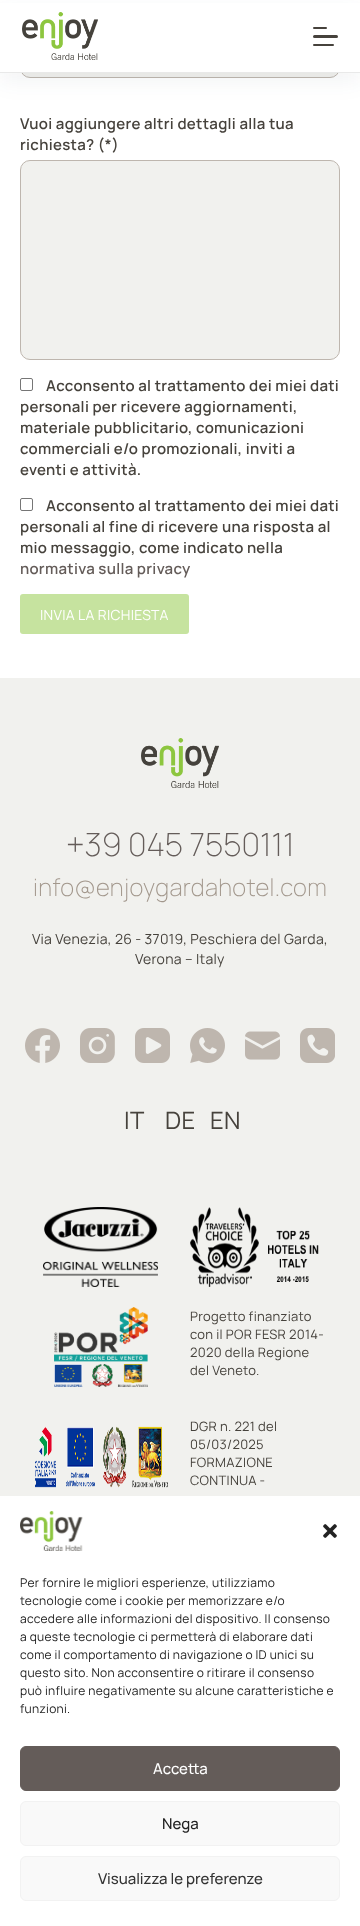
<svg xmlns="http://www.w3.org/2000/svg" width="360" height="1926">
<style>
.a{font:600 15px Manrope;letter-spacing:0.3px;fill:#46423c}
.b{font:600 15px Manrope;letter-spacing:0.3px;fill:#645c59}
.c{font:14px Manrope;letter-spacing:0.3px;fill:#fff}
.d{font:200 32px Manrope;fill:#645c59}
.e{font:200 24px Manrope;letter-spacing:0.3px;fill:#a2978c}
.f{font:14px Manrope;letter-spacing:0.3px;fill:#46423c}
.g{font:24px Manrope;letter-spacing:0.3px;fill:#46423c}
.h{font:13px Manrope;letter-spacing:0.3px;fill:#46423c}
.i{font:12px Manrope;letter-spacing:0.3px;fill:#222}
.j{font:500 15px Manrope;fill:#fff}
.k{font:500 15px Manrope;fill:#222}
.l{font:500 15px Manrope;fill:#333}
</style>
<rect width="100%" height="100%" fill="#fff"/>
<rect fill="#f1f1ee" stroke="#beb6ae" x="20.5" y="38.5" width="319" height="39" rx="9.5"/>
<path fill="#2c3e500d" filter="blur(10px)" d="M0 10h360v73H0z"/>
<path fill="#fff" d="M0 3h360v69H0z"/>
<path fill="#e9e9e9" d="M0 72h360v1H0z"/>
<image href="1.png" x="22" y="12" width="76" height="48"/>
<rect fill="#46423c" x="313" y="27" width="14" height="2" rx="1"/>
<rect fill="#46423c" x="313" y="35" width="25" height="3" rx="1.5"/>
<rect fill="#46423c" x="313" y="44" width="21" height="2" rx="1"/>
<rect fill="#f1f1ee" stroke="#beb6ae" x="20.5" y="160.5" width="319" height="199" rx="9.5"/>
<rect fill="none" stroke="#767676" x="20.5" y="378.5" width="12" height="12" rx="1.5"/>
<rect fill="none" stroke="#767676" x="20.5" y="498.5" width="12" height="12" rx="1.5"/>
<rect fill="#c6e39f" x="20" y="594" width="169" height="40" rx="3"/>
<path fill="#f1f1ee" d="M0 678h360v818H0z"/>
<image href="2.png" x="141" y="738" width="78" height="50"/>
<image href="3.png" x="25" y="1028" width="35" height="35"/>
<image href="4.png" x="80" y="1028" width="35" height="35"/>
<image href="5.png" x="135" y="1028" width="35" height="35"/>
<image href="6.png" x="190" y="1028" width="35" height="35"/>
<image href="7.png" x="245" y="1031" width="35" height="29"/>
<image href="8.png" x="300" y="1028" width="35" height="35"/>
<image href="9.png" x="43" y="1207" width="115" height="80"/>
<image href="10.png" x="190" y="1207" width="129" height="80"/>
<image href="11.png" x="54" y="1307" width="94" height="80"/>
<image href="12.png" x="35" y="1426" width="133" height="62"/>
<image href="13.png" x="20" y="1511" width="63" height="40"/>
<image href="14.png" x="323" y="1524" width="14" height="14"/>
<rect fill="#645c59" stroke="#645c59" x="20.5" y="1746.5" width="319" height="44" rx="5.5"/>
<rect fill="#f9f9f9" stroke="#f2f2f2" x="20.5" y="1801.5" width="319" height="44" rx="5.5"/>
<rect fill="#f9f9f9" stroke="#f2f2f2" x="20.5" y="1856.5" width="319" height="44" rx="5.5"/>
<text class="a" x="20" y="129">Vuoi aggiungere altri dettagli alla tua</text>
<text class="a" x="20" y="150">richiesta? (*)</text>
<text class="a" x="46" y="391">Acconsento al trattamento dei miei dati</text>
<text class="a" x="20" y="412">personali per ricevere aggiornamenti,</text>
<text class="a" x="20" y="433">materiale pubblicitario, comunicazioni</text>
<text class="a" x="20" y="454">commerciali e/o promozionali, inviti a</text>
<text class="a" x="20" y="475">eventi e attività.</text>
<text class="a" x="46" y="511">Acconsento al trattamento dei miei dati</text>
<text class="a" x="20" y="532">personali al fine di ricevere una risposta al</text>
<text class="a" x="20" y="553">mio messaggio, come indicato nella</text>
<text class="b" x="20" y="574">normativa sulla privacy</text>
<text class="c" x="40" y="620">INVIA LA RICHIESTA</text>
<text class="d" x="66" y="856">+39 045 7550111</text>
<text class="e" x="33" y="896">info@enjoygardahotel.com</text>
<text class="f" x="32" y="944">Via Venezia, 26 - 37019, Peschiera del Garda,</text>
<text class="f" x="135" y="964">Verona – Italy</text>
<text class="g" x="124" y="1129">IT</text>
<text class="g" x="165" y="1129">DE</text>
<text class="g" x="210" y="1129">EN</text>
<text class="h" x="190" y="1321">Progetto finanziato</text>
<text class="h" x="190" y="1339">con il POR FESR 2014-</text>
<text class="h" x="190" y="1357">2020 della Regione</text>
<text class="h" x="190" y="1375">del Veneto.</text>
<text class="h" x="190" y="1431">DGR n. 221 del</text>
<text class="h" x="190" y="1449">05/03/2025</text>
<text class="h" x="190" y="1467">FORMAZIONE</text>
<text class="h" x="190" y="1485">CONTINUA -</text>
<text class="i" x="20" y="1587">Per fornire le migliori esperienze, utilizziamo</text>
<text class="i" x="20" y="1605">tecnologie come i cookie per memorizzare e/o</text>
<text class="i" x="20" y="1623">accedere alle informazioni del dispositivo. Il consenso</text>
<text class="i" x="20" y="1641">a queste tecnologie ci permetterà di elaborare dati</text>
<text class="i" x="20" y="1659">come il comportamento di navigazione o ID unici su</text>
<text class="i" x="20" y="1677">questo sito. Non acconsentire o ritirare il consenso</text>
<text class="i" x="20" y="1695">può influire negativamente su alcune caratteristiche e</text>
<text class="i" x="20" y="1713">funzioni.</text>
<text class="j" x="153" y="1774">Accetta</text>
<text class="k" x="162" y="1829">Nega</text>
<text class="l" x="98" y="1884">Visualizza le preferenze</text>
</svg>
